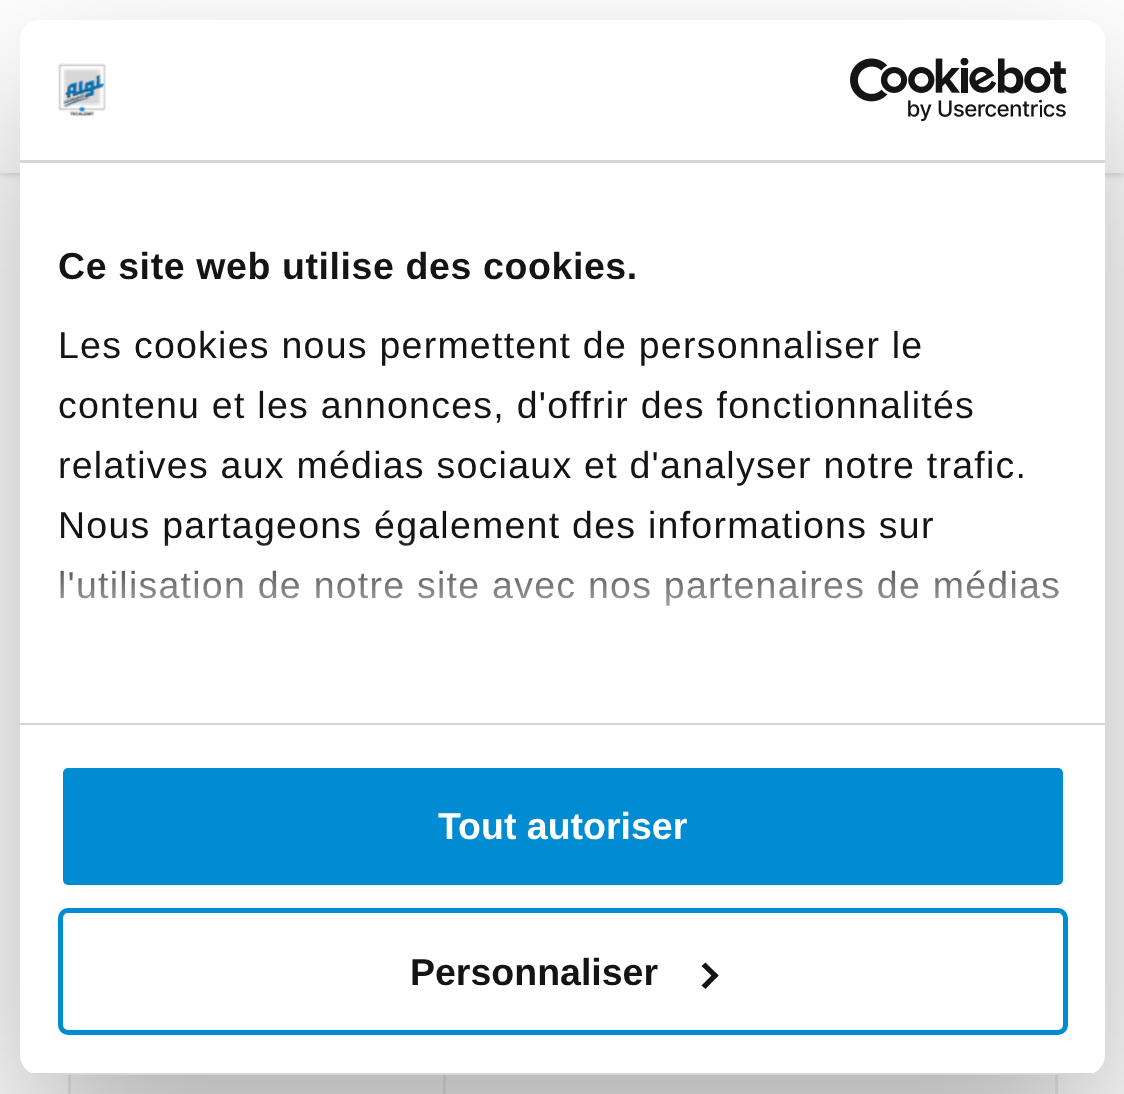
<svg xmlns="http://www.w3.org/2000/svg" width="1124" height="1094">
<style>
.a{font:bold 37.5px Liberation Sans;letter-spacing:0.6px;fill:#141414}
.b{font:37.5px Liberation Sans;letter-spacing:1.25px;fill:#141414}
.c{font:bold 37.5px Liberation Sans;fill:#fff}
.d{font:bold 37.5px Liberation Sans;fill:#141414}
</style>
<defs>
<clipPath id="clip1"><rect x="20" y="20" width="1085" height="1055" rx="20"/></clipPath>
<linearGradient id="g1" gradientUnits="userSpaceOnUse" x1="546" y1="723" x2="546" y2="535"><stop offset="0" stop-color="#fff"/><stop offset="0.5" stop-color="#fff" stop-opacity="0.8"/><stop offset="1" stop-color="#fff" stop-opacity="0"/></linearGradient>
</defs>
<rect width="100%" height="100%" fill="#fff"/>
<path fill="#00000038" filter="blur(4px)" d="M0 0h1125v173H0z"/>
<path fill="#fff" d="M0 0h1124v173H0z"/>
<path fill="#fcfcfc" d="M71 1075h984v19H71z"/>
<path fill="#ececec" d="M443 1075h3v19H443z"/>
<path fill="#ececec" d="M68 1075h3v19H68z"/>
<path fill="#ececec" d="M1055 1075h3v19H1055z"/>
<rect fill="#0000004d" filter="blur(85px)" x="20" y="100" width="1085" height="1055" rx="20"/>
<rect fill="#fff" x="20" y="20" width="1085" height="1055" rx="20"/>
<path fill="#d6d6d6" d="M20 160h1085v3H20z"/>
<image href="1.png" x="58" y="63" width="48" height="54"/>
<image href="2.png" x="850" y="58" width="217" height="63"/>
<path fill="#d6d6d6" d="M20 723h1085v2H20z"/>
<g clip-path="url(#clip1)">
<path fill="#d6d6d6" d="M31 1073h1063v2H31z"/>
</g>
<rect fill="#018bd2" stroke="#fff" stroke-width="5" x="60.5" y="765.5" width="1005" height="122" rx="7.5"/>
<rect fill="none" stroke="#018bd2" stroke-width="5" x="60.5" y="910.5" width="1005" height="122" rx="7.5"/>
<path fill="#141414" d="M705.5 962.5l13 13l-3.5 3.5l-13.5-13z"/>
<path fill="#141414" d="M715 972l3.5 3.5l-13 13.5l-4-3.5z"/>
<text class="a" x="58" y="279">Ce site web utilise des cookies.</text>
<text class="b" x="58" y="358">Les cookies nous permettent de personnaliser le</text>
<text class="b" x="58" y="418">contenu et les annonces, d'offrir des fonctionnalités</text>
<text class="b" x="58" y="478">relatives aux médias sociaux et d'analyser notre trafic.</text>
<text class="b" x="58" y="538">Nous partageons également des informations sur</text>
<text class="b" x="58" y="598">l'utilisation de notre site avec nos partenaires de médias</text>
<path fill="url(#g1)" d="M60 538h998v68H60z"/>
<text class="c" x="438" y="839">Tout autoriser</text>
<text class="d" x="410" y="985">Personnaliser</text>
</svg>
